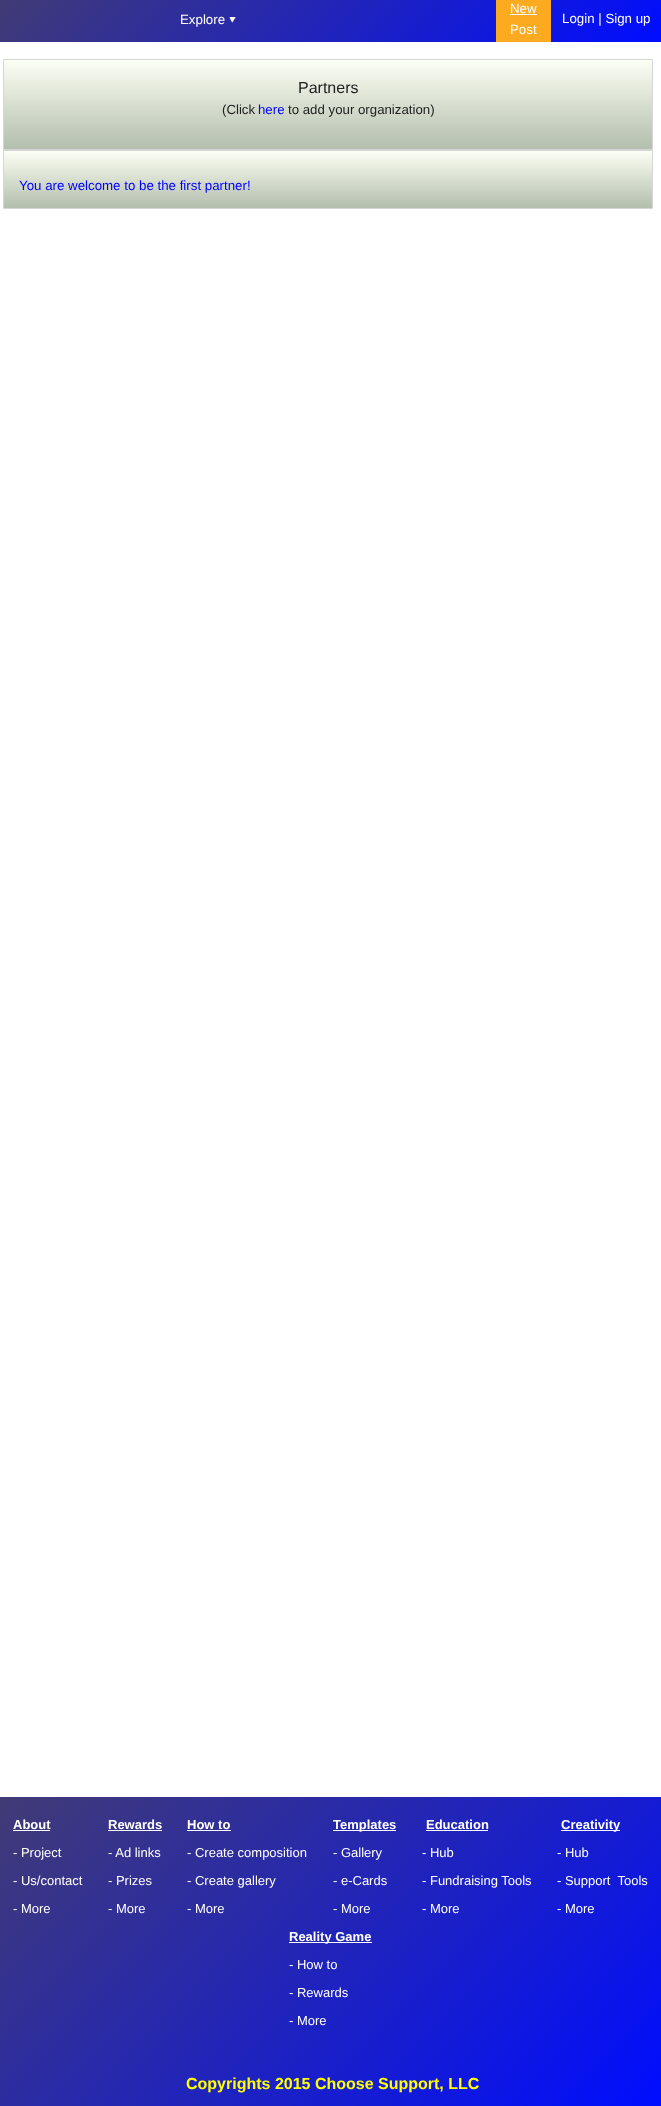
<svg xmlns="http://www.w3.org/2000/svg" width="661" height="2106">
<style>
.a{font:13.3px Liberation Sans;fill:#fff}
.b{font:16px Liberation Sans;fill:#222321}
.c{font:13.25px Liberation Sans;fill:#222321}
.d{font:13.25px Liberation Sans;fill:#00f}
.e{font:13.3px Liberation Sans;fill:#00f}
.f{font:bold 13px Liberation Sans;fill:#fff}
.g{font:13px Liberation Sans;fill:#fff}
.h{font:bold 16px Liberation Sans;fill:#ff0}
</style>
<defs>
<linearGradient id="g1" gradientUnits="userSpaceOnUse" x1="154" y1="-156" x2="507" y2="196"><stop offset="0" stop-color="#413b75"/><stop offset="1" stop-color="#000dff"/></linearGradient>
<linearGradient id="g2" gradientUnits="userSpaceOnUse" x1="328" y1="60" x2="328" y2="149"><stop offset="0" stop-color="#fcfff4"/><stop offset="0.4" stop-color="#dfe5d7"/><stop offset="1" stop-color="#b3bead"/></linearGradient>
<linearGradient id="g3" gradientUnits="userSpaceOnUse" x1="328" y1="151" x2="328" y2="208"><stop offset="0" stop-color="#fcfff4"/><stop offset="0.4" stop-color="#dfe5d7"/><stop offset="1" stop-color="#b3bead"/></linearGradient>
<linearGradient id="g4" gradientUnits="userSpaceOnUse" x1="88" y1="1709" x2="573" y2="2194"><stop offset="0" stop-color="#413b75"/><stop offset="1" stop-color="#000dff"/></linearGradient>
</defs>
<rect width="100%" height="100%" fill="#fff"/>
<path fill="url(#g1)" d="M0 0h661v42H0z"/>
<image href="1.png" x="229" y="17" width="7" height="6"/>
<path fill="#fcab20" d="M496 0h55v42H496z"/>
<path fill="#fff" d="M510 14h27v1H510z"/>
<path fill="url(#g2)" d="M4 60h648v89H4z"/>
<path fill="none" stroke="#d5d5d5" d="M3.5 59.5h649v90H3.5z"/>
<path fill="url(#g3)" d="M4 151h648v57H4z"/>
<path fill="none" stroke="#d5d5d5" d="M3.5 150.5h649v58H3.5z"/>
<path fill="url(#g4)" d="M0 1797h661v309H0z"/>
<path fill="#fff" d="M13 1830h37v1H13z"/>
<path fill="#fff" d="M108 1830h54v1H108z"/>
<path fill="#fff" d="M187 1830h44v1H187z"/>
<path fill="#fff" d="M333 1830h63v1H333z"/>
<path fill="#fff" d="M426 1830h62v1H426z"/>
<path fill="#fff" d="M561 1830h59v1H561z"/>
<path fill="#fff" d="M289 1942h83v1H289z"/>
<text class="a" x="180" y="24">Explore</text>
<text class="a" x="510" y="13">New</text>
<text class="a" x="510" y="34">Post</text>
<text class="a" x="562" y="23">Login | Sign up</text>
<text class="b" x="298" y="93">Partners</text>
<text class="c" x="222" y="114">(Click</text>
<text class="d" x="258" y="114">here</text>
<text class="c" x="288" y="114">to add your organization)</text>
<text class="e" x="19" y="190">You are welcome to be the first partner!</text>
<text class="f" x="13" y="1829">About</text>
<text class="g" x="13" y="1857">- Project</text>
<text class="g" x="13" y="1885">- Us/contact</text>
<text class="g" x="13" y="1913">- More</text>
<text class="f" x="108" y="1829">Rewards</text>
<text class="g" x="108" y="1857">- Ad links</text>
<text class="g" x="108" y="1885">- Prizes</text>
<text class="g" x="108" y="1913">- More</text>
<text class="f" x="187" y="1829">How to</text>
<text class="g" x="187" y="1857">- Create composition</text>
<text class="g" x="187" y="1885">- Create gallery</text>
<text class="g" x="187" y="1913">- More</text>
<text class="f" x="333" y="1829">Templates</text>
<text class="g" x="333" y="1857">- Gallery</text>
<text class="g" x="333" y="1885">- e-Cards</text>
<text class="g" x="333" y="1913">- More</text>
<text class="f" x="426" y="1829">Education</text>
<text class="g" x="422" y="1857">- Hub</text>
<text class="g" x="422" y="1885">- Fundraising Tools</text>
<text class="g" x="422" y="1913">- More</text>
<text class="f" x="561" y="1829">Creativity</text>
<text class="g" x="557" y="1857">- Hub</text>
<text class="g" xml:space="preserve" x="557" y="1885">- Support  Tools</text>
<text class="g" x="557" y="1913">- More</text>
<text class="f" x="289" y="1941">Reality Game</text>
<text class="g" x="289" y="1969">- How to</text>
<text class="g" x="289" y="1997">- Rewards</text>
<text class="g" x="289" y="2025">- More</text>
<text class="h" x="186" y="2089">Copyrights 2015 Choose Support, LLC</text>
</svg>
